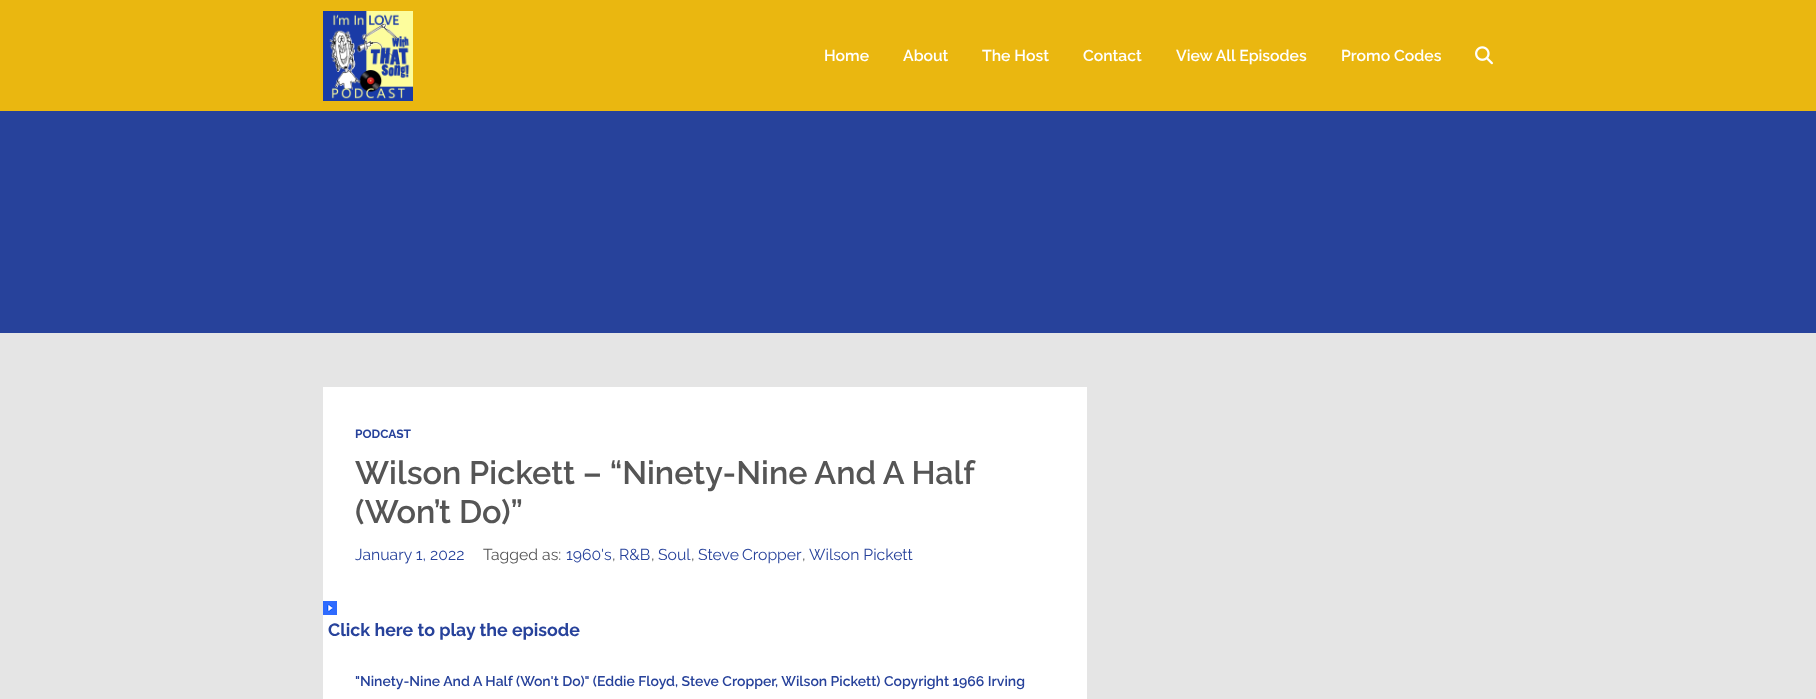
<svg xmlns="http://www.w3.org/2000/svg" width="1816" height="699">
<style>
.a{font:600 15.75px Raleway;fill:#fff}
.b{font:bold 12px Raleway;fill:#27429b}
.c{font:600 32.4px Raleway;fill:#555}
.d{font:15.75px Raleway;fill:#27429b}
.e{font:15.75px Raleway;fill:#555}
.f{font:bold 17.75px Raleway;fill:#27429b}
.g{font:600 14px Raleway;fill:#27429b}
</style>
<rect width="100%" height="100%" fill="#eab710"/>
<image href="1.png" x="323" y="11" width="90" height="90"/>
<image href="2.png" x="1475" y="46" width="18" height="19"/>
<path fill="#27429b" d="M0 111h1816v222H0z"/>
<path fill="#e5e5e5" d="M0 333h1816v366H0z"/>
<path fill="#fff" d="M323 387h764v312H323z"/>
<image href="3.png" x="323" y="601" width="14" height="14"/>
<text class="a" x="824" y="61">Home</text>
<text class="a" x="903" y="61">About</text>
<text class="a" x="982" y="61">The Host</text>
<text class="a" x="1083" y="61">Contact</text>
<text class="a" x="1176" y="61">View All Episodes</text>
<text class="a" x="1341" y="61">Promo Codes</text>
<text class="b" x="355" y="438">PODCAST</text>
<text class="c" x="355" y="484" word-spacing="-0.25">Wilson Pickett – “Ninety-Nine And A Half</text>
<text class="c" x="355" y="523">(Won’t Do)”</text>
<text class="d" x="355" y="560">January 1, 2022</text>
<text class="e" x="483" y="560">Tagged as:</text>
<text class="d" x="566" y="560">1960's</text>
<text class="e" x="612" y="560">,</text>
<text class="d" x="619" y="560">R&amp;B</text>
<text class="e" x="651" y="560">,</text>
<text class="d" x="658" y="560">Soul</text>
<text class="e" x="691" y="560">,</text>
<text class="d" x="698" y="560" word-spacing="-1">Steve Cropper</text>
<text class="e" x="802" y="560">,</text>
<text class="d" x="809" y="560">Wilson Pickett</text>
<text class="f" x="328" y="636">Click here to play the episode</text>
<text class="g" x="355" y="686">"Ninety-Nine And A Half (Won't Do)" (Eddie Floyd, Steve Cropper, Wilson Pickett) Copyright 1966 Irving</text>
</svg>
